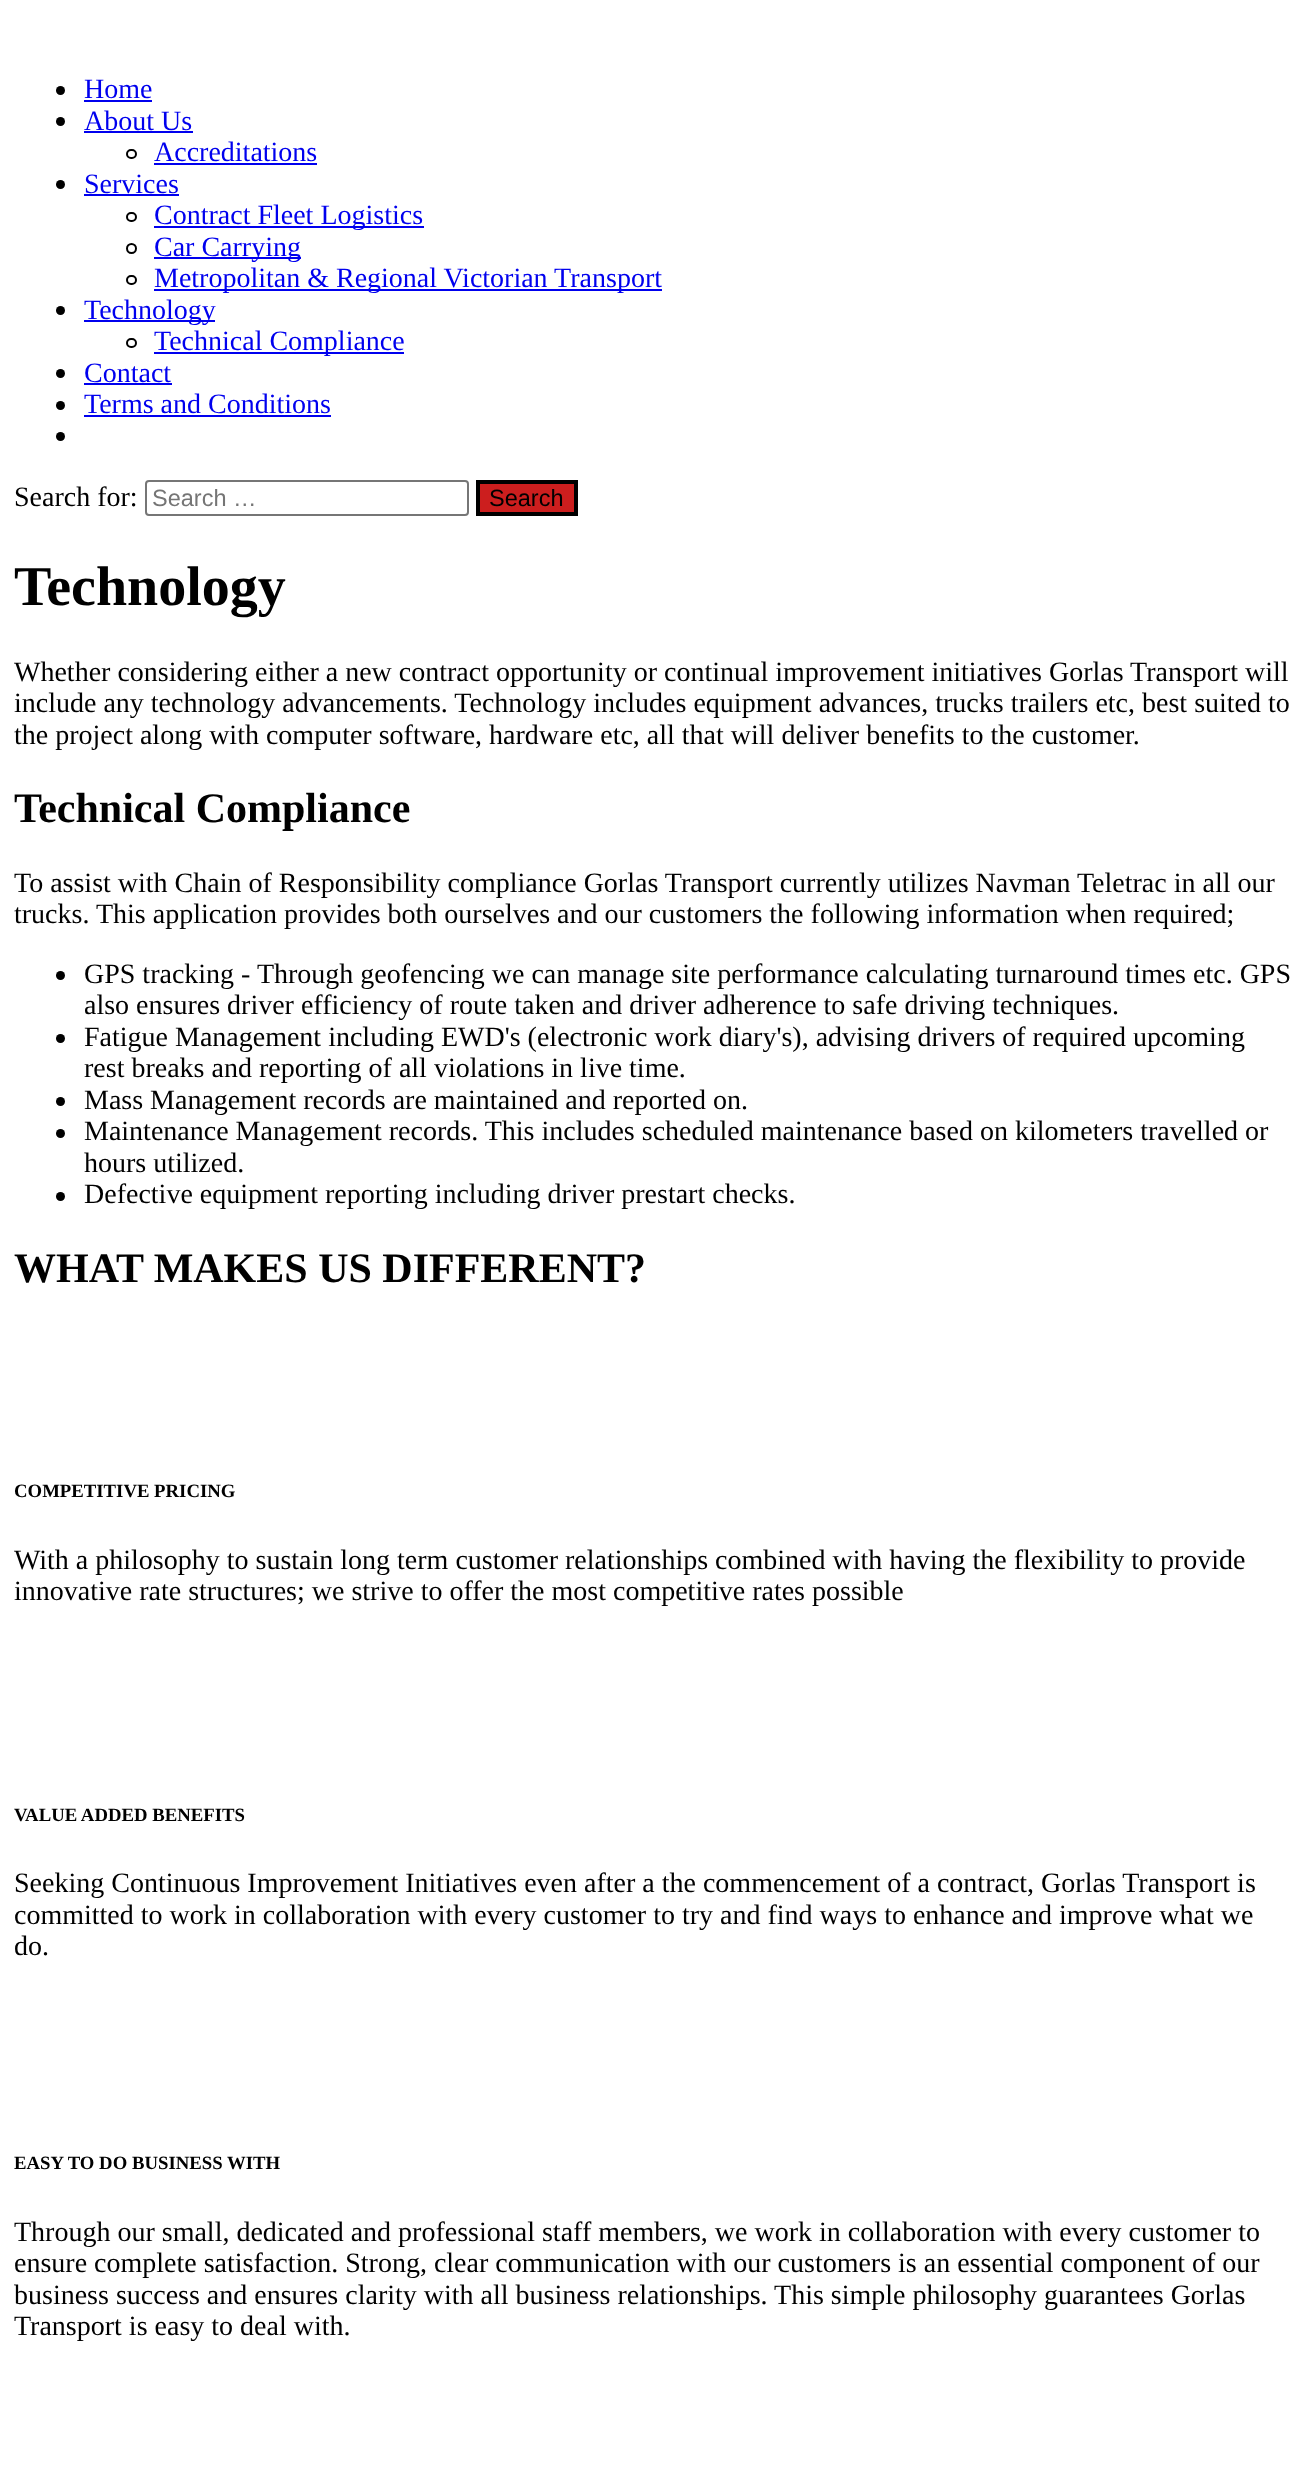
<svg xmlns="http://www.w3.org/2000/svg" width="1305" height="2482">
<style>
.a{font:28px Liberation Serif;fill:#00e}
.b{font:28px Liberation Serif;fill:#000}
.c{font:23.5px Liberation Sans;fill:#757575}
.d{font:23.5px Liberation Sans;fill:#000}
.e{font:bold 56px Liberation Serif;fill:#000}
.f{font:bold 42px Liberation Serif;fill:#000}
.g{font:bold 18.75px Liberation Serif;fill:#000}
</style>
<rect width="100%" height="100%" fill="#fff"/>
<circle fill="#000" cx="60.5" cy="90.5" r="4.5"/>
<path fill="#00e" d="M84 100h68v2H84z"/>
<circle fill="#000" cx="60.5" cy="121.5" r="4.5"/>
<path fill="#00e" d="M84 131h109v2H84z"/>
<rect fill="none" stroke="#000" stroke-width="2" x="127" y="150" width="9" height="8" rx="4"/>
<path fill="#00e" d="M154 163h163v2H154z"/>
<circle fill="#000" cx="60.5" cy="184.5" r="4.5"/>
<path fill="#00e" d="M84 194h95v2H84z"/>
<rect fill="none" stroke="#000" stroke-width="2" x="127" y="213" width="9" height="8" rx="4"/>
<path fill="#00e" d="M154 226h270v2H154z"/>
<circle fill="none" stroke="#000" stroke-width="2" cx="131.5" cy="248.5" r="4.5"/>
<path fill="#00e" d="M154 257h147v2H154z"/>
<rect fill="none" stroke="#000" stroke-width="2" x="127" y="276" width="9" height="8" rx="4"/>
<path fill="#00e" d="M154 289h508v2H154z"/>
<circle fill="#000" cx="60.5" cy="310.5" r="4.5"/>
<path fill="#00e" d="M84 320h131v2H84z"/>
<rect fill="none" stroke="#000" stroke-width="2" x="127" y="339" width="9" height="8" rx="4"/>
<path fill="#00e" d="M154 352h250v2H154z"/>
<circle fill="#000" cx="60.5" cy="373.5" r="4.5"/>
<path fill="#00e" d="M84 383h88v2H84z"/>
<circle fill="#000" cx="60.5" cy="405.5" r="4.5"/>
<path fill="#00e" d="M84 415h247v2H84z"/>
<circle fill="#000" cx="60.5" cy="436.5" r="4.5"/>
<rect fill="none" stroke="#767676" stroke-width="2" x="146" y="481" width="322" height="34" rx="3"/>
<path fill="#cc1e1e" stroke="#000" stroke-width="4" d="M478 482h98v32H478z"/>
<circle fill="#000" cx="60.5" cy="975.5" r="4.5"/>
<circle fill="#000" cx="60.5" cy="1038.5" r="4.5"/>
<circle fill="#000" cx="60.5" cy="1101.5" r="4.5"/>
<circle fill="#000" cx="60.5" cy="1133.5" r="4.5"/>
<circle fill="#000" cx="60.5" cy="1196.5" r="4.5"/>
<text class="a" x="84" y="98">Home</text>
<text class="a" x="84" y="130">About Us</text>
<text class="a" x="154" y="161">Accreditations</text>
<text class="a" x="84" y="193">Services</text>
<text class="a" x="154" y="224">Contract Fleet Logistics</text>
<text class="a" x="154" y="256">Car Carrying</text>
<text class="a" x="154" y="287">Metropolitan &amp; Regional Victorian Transport</text>
<text class="a" x="84" y="319">Technology</text>
<text class="a" x="154" y="350">Technical Compliance</text>
<text class="a" x="84" y="382">Contact</text>
<text class="a" x="84" y="413">Terms and Conditions</text>
<text class="b" x="14" y="506">Search for:</text>
<text class="c" x="152" y="506">Search …</text>
<text class="d" x="489" y="506">Search</text>
<text class="e" x="14" y="605">Technology</text>
<text class="b" x="14" y="681">Whether considering either a new contract opportunity or continual improvement initiatives Gorlas Transport will</text>
<text class="b" x="14" y="712">include any technology advancements. Technology includes equipment advances, trucks trailers etc, best suited to</text>
<text class="b" x="14" y="744">the project along with computer software, hardware etc, all that will deliver benefits to the customer.</text>
<text class="f" x="14" y="822">Technical Compliance</text>
<text class="b" x="14" y="892">To assist with Chain of Responsibility compliance Gorlas Transport currently utilizes Navman Teletrac in all our</text>
<text class="b" x="14" y="923">trucks. This application provides both ourselves and our customers the following information when required;</text>
<text class="b" x="84" y="983">GPS tracking - Through geofencing we can manage site performance calculating turnaround times etc. GPS</text>
<text class="b" x="84" y="1014">also ensures driver efficiency of route taken and driver adherence to safe driving techniques.</text>
<text class="b" x="84" y="1046">Fatigue Management including EWD's (electronic work diary's), advising drivers of required upcoming</text>
<text class="b" x="84" y="1077">rest breaks and reporting of all violations in live time.</text>
<text class="b" x="84" y="1109">Mass Management records are maintained and reported on.</text>
<text class="b" x="84" y="1140">Maintenance Management records. This includes scheduled maintenance based on kilometers travelled or</text>
<text class="b" x="84" y="1172">hours utilized.</text>
<text class="b" x="84" y="1203">Defective equipment reporting including driver prestart checks.</text>
<text class="f" x="14" y="1282">WHAT MAKES US DIFFERENT?</text>
<text class="g" x="14" y="1497">COMPETITIVE PRICING</text>
<text class="b" x="14" y="1569">With a philosophy to sustain long term customer relationships combined with having the flexibility to provide</text>
<text class="b" x="14" y="1600">innovative rate structures; we strive to offer the most competitive rates possible</text>
<text class="g" x="14" y="1821">VALUE ADDED BENEFITS</text>
<text class="b" x="14" y="1892">Seeking Continuous Improvement Initiatives even after a the commencement of a contract, Gorlas Transport is</text>
<text class="b" x="14" y="1924">committed to work in collaboration with every customer to try and find ways to enhance and improve what we</text>
<text class="b" x="14" y="1955">do.</text>
<text class="g" x="14" y="2169">EASY TO DO BUSINESS WITH</text>
<text class="b" x="14" y="2241">Through our small, dedicated and professional staff members, we work in collaboration with every customer to</text>
<text class="b" x="14" y="2272">ensure complete satisfaction. Strong, clear communication with our customers is an essential component of our</text>
<text class="b" x="14" y="2304">business success and ensures clarity with all business relationships. This simple philosophy guarantees Gorlas</text>
<text class="b" x="14" y="2335">Transport is easy to deal with.</text>
</svg>
